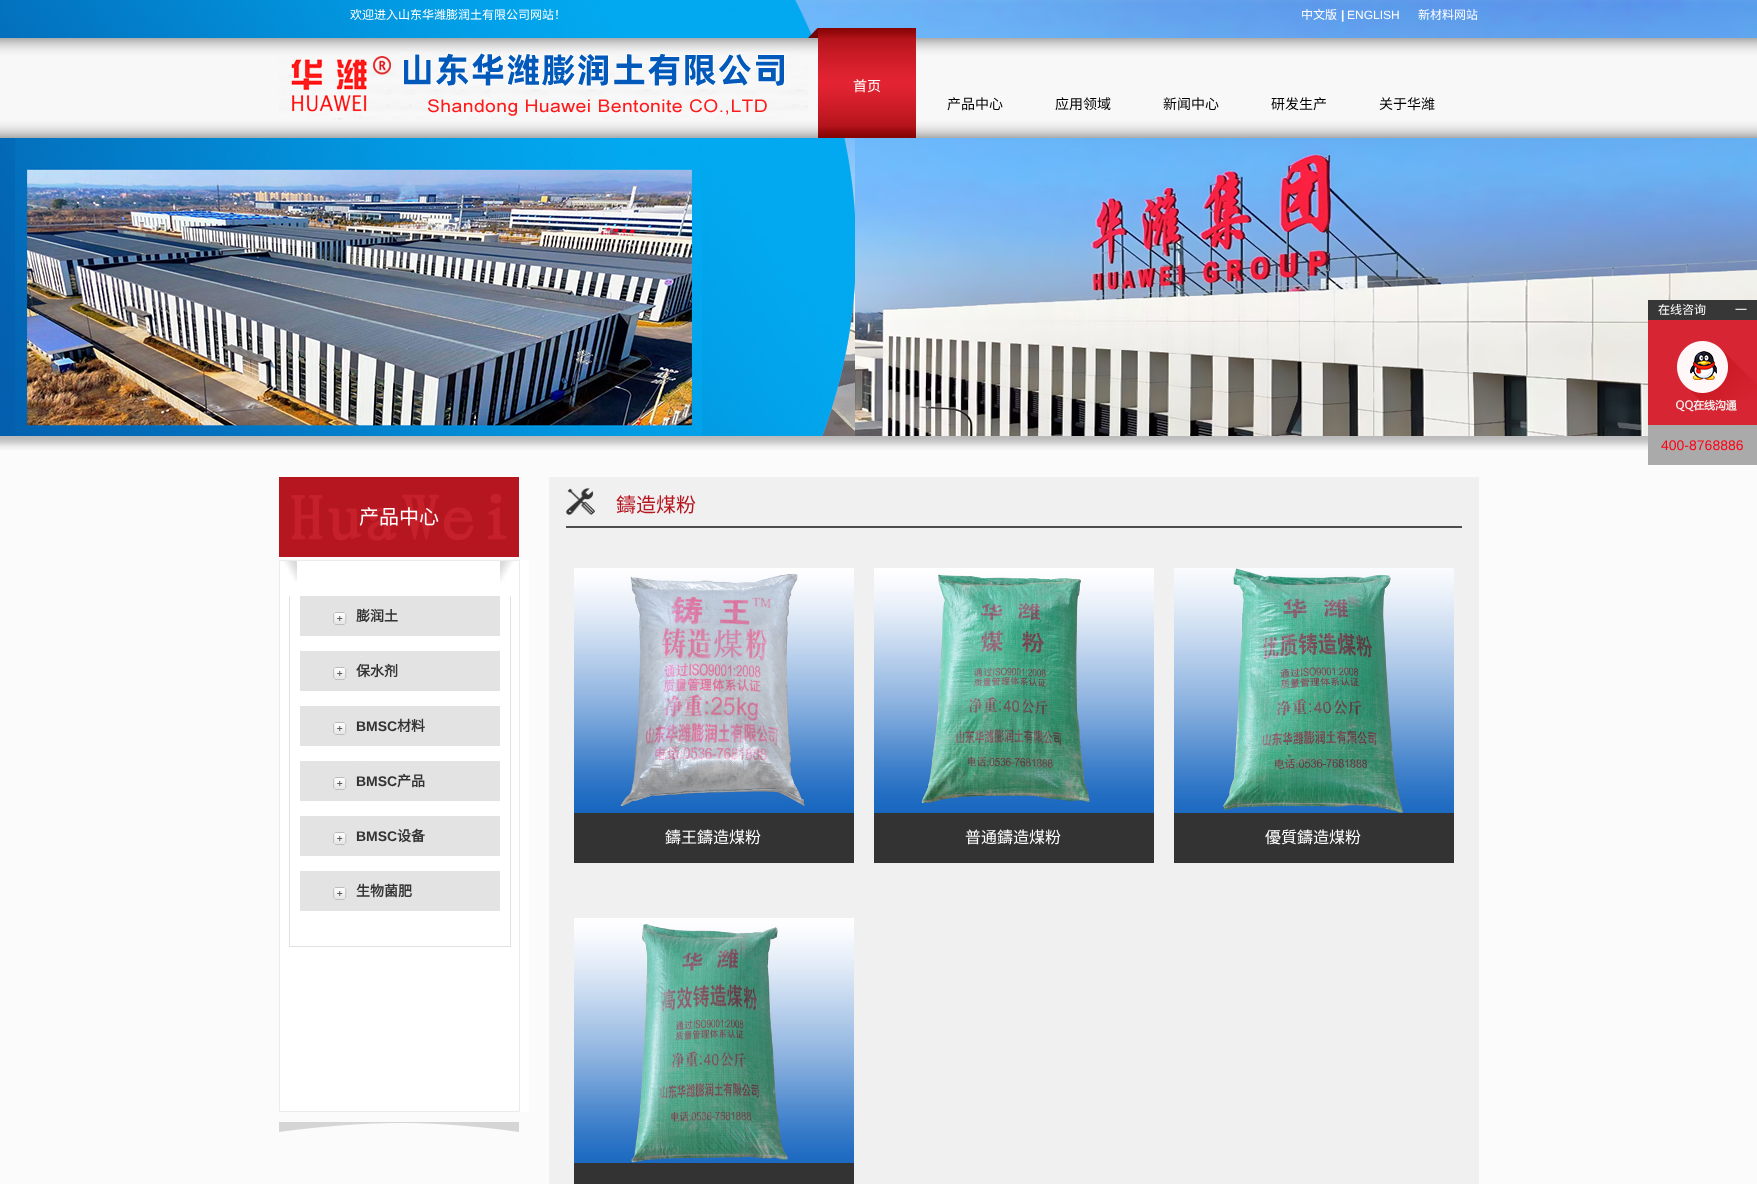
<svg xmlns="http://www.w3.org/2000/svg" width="1757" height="1184">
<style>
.a{font:12px Noto Sans CJK SC;fill:#fff}
.b{font:bold 12px Liberation Sans;fill:#fff}
.c{font:12px Liberation Sans;fill:#fff}
.d{font:14px Noto Sans CJK SC;fill:#fff}
.e{font:14px Noto Sans CJK SC;fill:#000}
.f{font:14px Liberation Sans;fill:#ff0014}
.g{font:20px Noto Sans CJK SC;fill:#fff}
.h{font:bold 14px Noto Sans CJK SC;fill:#333}
.i{font:bold 14px Liberation Sans;fill:#333}
.j{font:20px Noto Sans CJK SC;fill:#b61620}
.k{font:16px Noto Sans CJK SC;fill:#fff}
</style>
<rect width="100%" height="100%" fill="#fbfbfb"/>
<image href="1.png" x="0" y="436" width="1648" height="14"/>
<image href="2.png" x="0" y="0" width="1757" height="436"/>
<image href="3.png" x="0" y="38" width="1757" height="100"/>
<image href="4.png" x="279" y="52" width="529" height="68"/>
<image href="5.png" x="808" y="28" width="108" height="110"/>
<path fill="#373737" d="M1648 300h109v20H1648z"/>
<image href="6.png" x="1648" y="320" width="109" height="105"/>
<path fill="#aaa" d="M1648 425h109v40H1648z"/>
<image href="7.png" x="279" y="1122" width="240" height="10"/>
<image href="8.png" x="279" y="477" width="240" height="80"/>
<path fill="#fff" d="M280 560h249v552H280z"/>
<path fill="none" stroke="#ecebeb" d="M279.5 560.5h240v551H279.5z"/>
<image href="9.png" x="283" y="561" width="14" height="21"/>
<image href="10.png" x="500" y="561" width="14" height="21"/>
<path fill="#e2e1e1" d="M510 596h1v351H510z"/>
<path fill="#e2e1e1" d="M289 946h222v1H289z"/>
<path fill="#e2e1e1" d="M289 596h1v351H289z"/>
<image href="11.png" x="300" y="596" width="200" height="40"/>
<image href="11.png" x="300" y="651" width="200" height="40"/>
<image href="11.png" x="300" y="706" width="200" height="40"/>
<image href="11.png" x="300" y="761" width="200" height="40"/>
<image href="11.png" x="300" y="816" width="200" height="40"/>
<image href="11.png" x="300" y="871" width="200" height="40"/>
<path fill="#f0f0f0" d="M549 477h930v707H549z"/>
<image href="12.png" x="566" y="488" width="29" height="27"/>
<path fill="#4d4d4d" d="M566 526h896v2H566z"/>
<image href="13.png" x="574" y="568" width="280" height="245"/>
<path fill="#333" d="M574 813h280v50H574z"/>
<image href="14.png" x="874" y="568" width="280" height="245"/>
<path fill="#333" d="M874 813h280v50H874z"/>
<image href="15.png" x="1174" y="568" width="280" height="245"/>
<path fill="#333" d="M1174 813h280v50H1174z"/>
<image href="16.png" x="574" y="918" width="280" height="245"/>
<path fill="#333" d="M574 1163h280v21H574z"/>
<text class="a" x="350" y="19">欢迎进入山东华潍膨润土有限公司网站！</text>
<text class="a" x="1301" y="19">中文版</text>
<text class="b" x="1341" y="19">|</text>
<text class="c" x="1347" y="19">ENGLISH</text>
<text class="a" x="1418" y="19">新材料网站</text>
<text class="d" x="853" y="91">首页</text>
<text class="e" x="947" y="109">产品中心</text>
<text class="e" x="1055" y="109">应用领域</text>
<text class="e" x="1163" y="109">新闻中心</text>
<text class="e" x="1271" y="109">研发生产</text>
<text class="e" x="1379" y="109">关于华潍</text>
<text class="a" x="1658" y="314">在线咨询</text>
<text class="a" x="1735" y="314">一</text>
<text class="f" x="1661" y="450">400-8768886</text>
<text class="g" x="359" y="524">产品中心</text>
<text class="h" x="356" y="621">膨润土</text>
<text class="h" x="356" y="676">保水剂</text>
<text class="i" x="356" y="731">BMSC</text>
<text class="h" x="397" y="731">材料</text>
<text class="i" x="356" y="786">BMSC</text>
<text class="h" x="397" y="786">产品</text>
<text class="i" x="356" y="841">BMSC</text>
<text class="h" x="397" y="841">设备</text>
<text class="h" x="356" y="896">生物菌肥</text>
<text class="j" x="616" y="512">鑄造煤粉</text>
<text class="k" x="665" y="843">鑄王鑄造煤粉</text>
<text class="k" x="965" y="843">普通鑄造煤粉</text>
<text class="k" x="1265" y="843">優質鑄造煤粉</text>
</svg>
